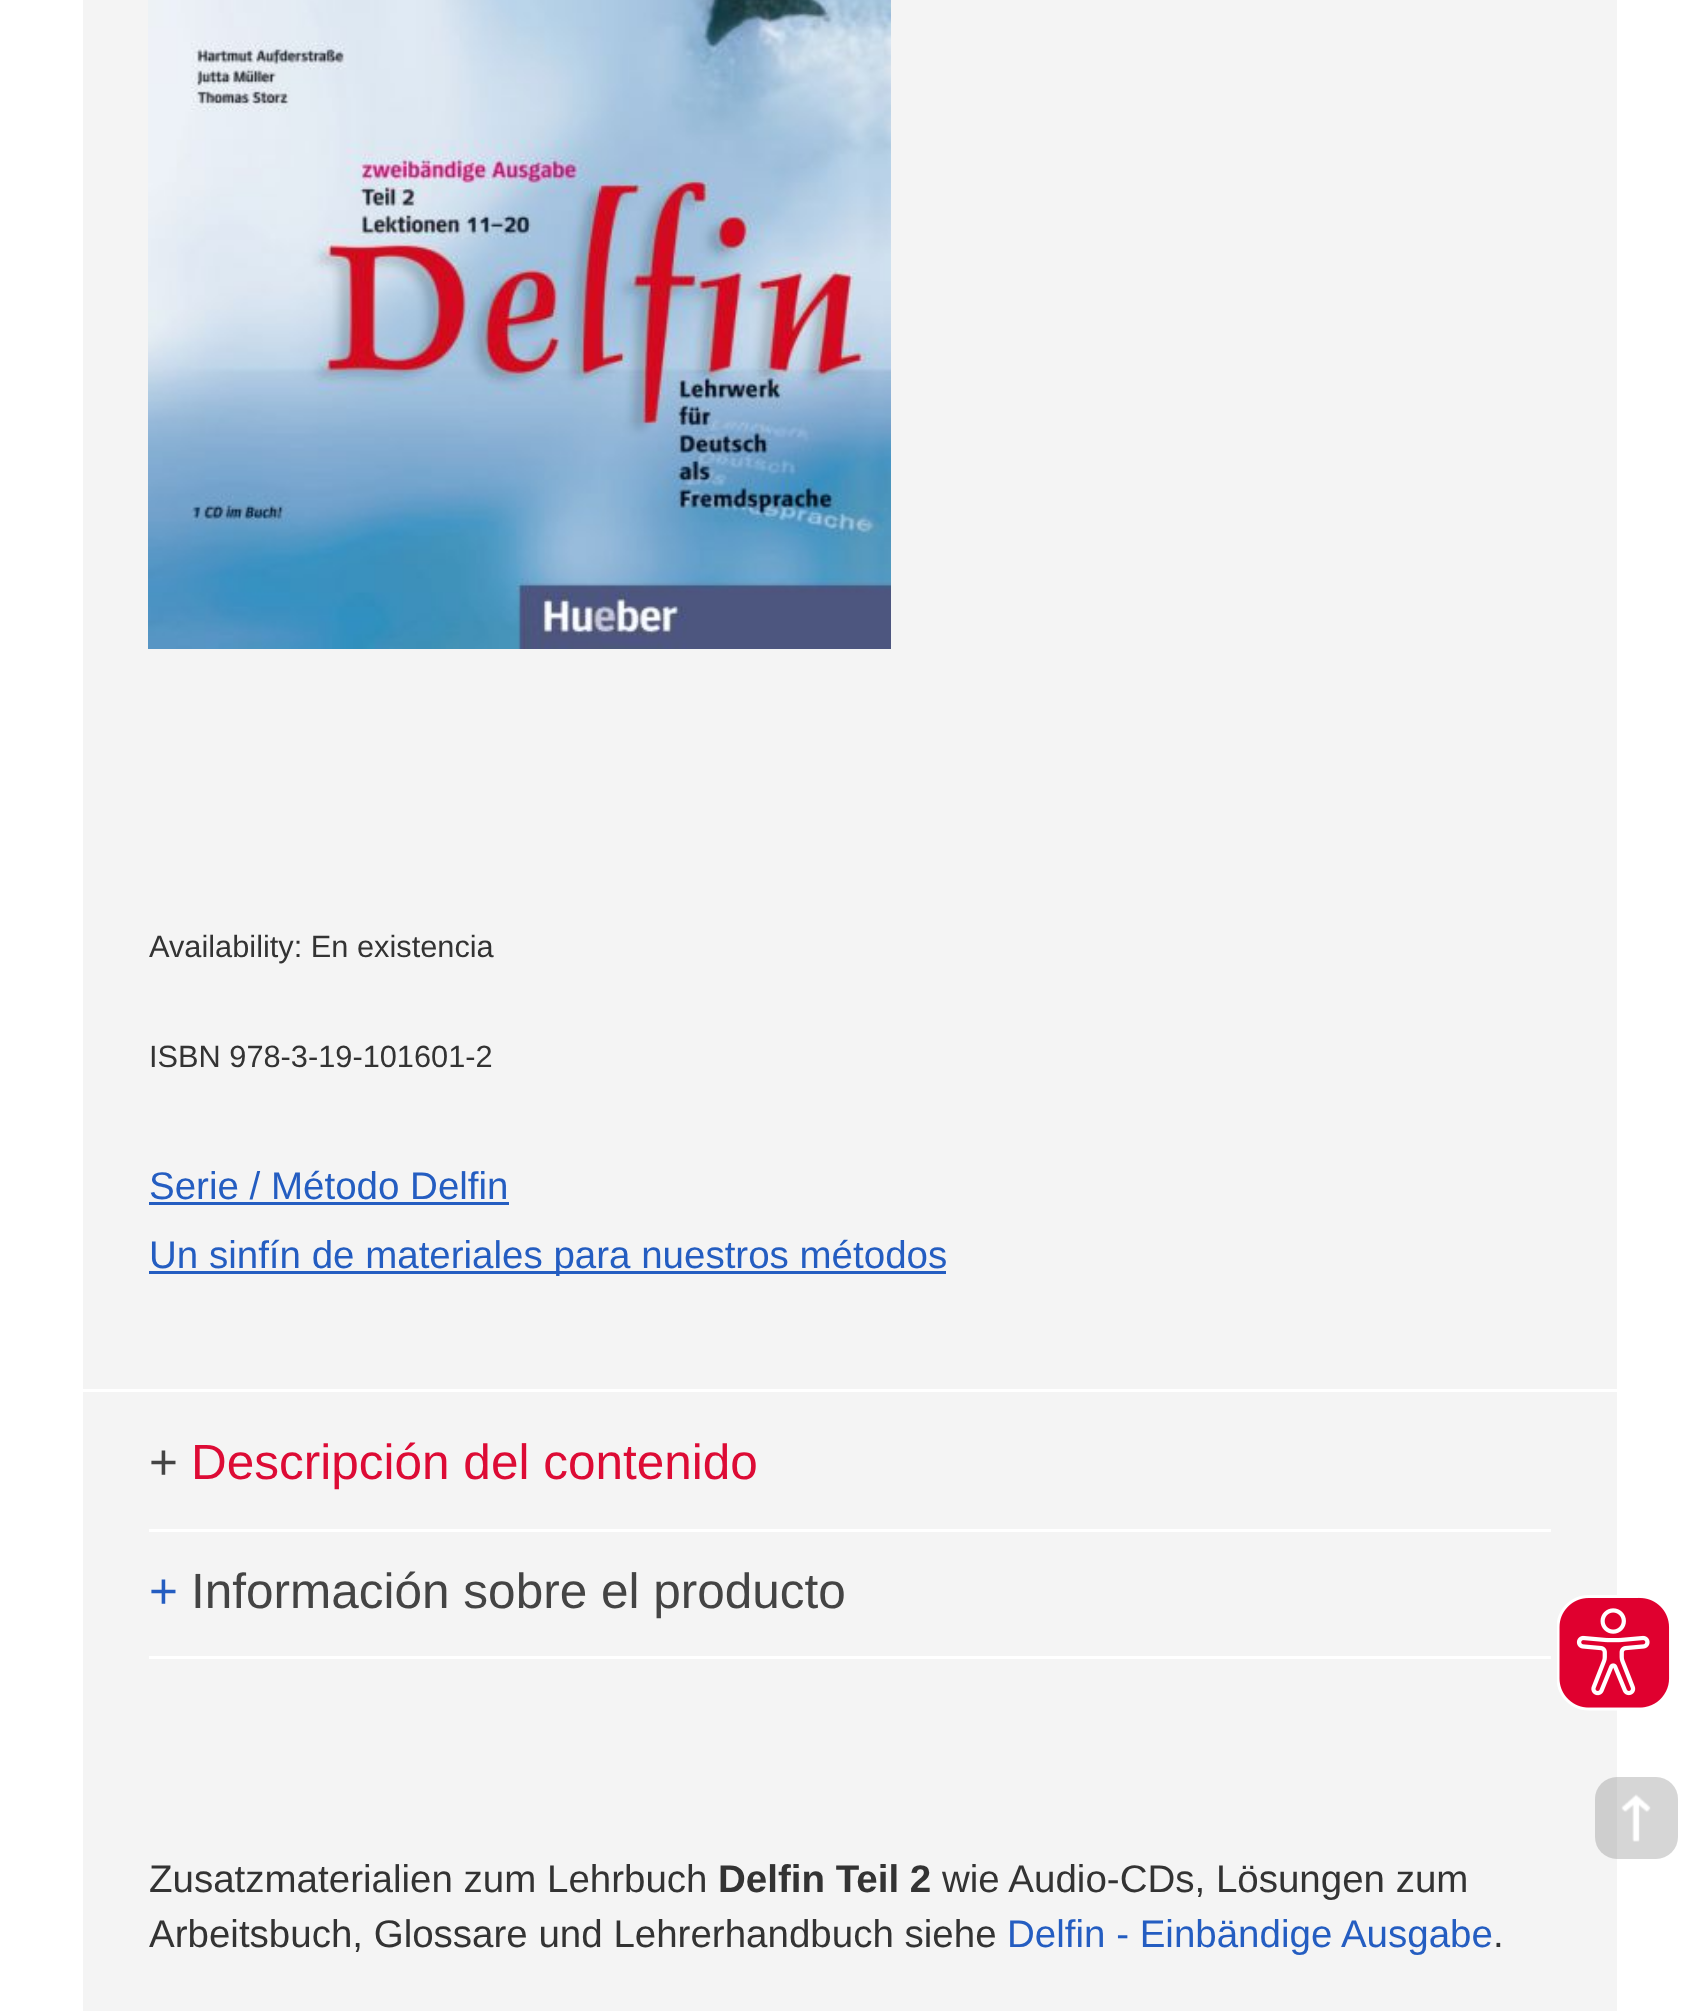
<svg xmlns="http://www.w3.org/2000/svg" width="1697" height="2011">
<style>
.a{font:30.75px Liberation Sans;fill:#333}
.b{font:38.5px Liberation Sans;fill:#245dc1}
.c{font:49.5px Liberation Sans;fill:#444}
.d{font:49.5px Liberation Sans;fill:#dd0b35}
.e{font:49.5px Liberation Sans;fill:#245dc1}
.f{font:38.5px Liberation Sans;fill:#333}
.g{font:bold 38.5px Liberation Sans;fill:#333}
</style>
<rect width="100%" height="100%" fill="#fff"/>
<path fill="#f4f4f4" d="M83 0h1534v2011H83z"/>
<path fill="#fff" d="M83 1389h1534v3H83z"/>
<image href="1.png" x="148" y="0" width="743" height="649"/>
<path fill="#245dc1" d="M149 1202h360v3H149z"/>
<path fill="#245dc1" d="M149 1271h797v3H149z"/>
<path fill="#fff" d="M149 1529h1402v3H149z"/>
<path fill="#fff" d="M149 1656h1402v3H149z"/>
<image href="2.png" x="1557" y="1595" width="113" height="116"/>
<rect fill="#7777774d" x="1595" y="1777" width="83" height="82" rx="22"/>
<image href="3.png" x="1621" y="1794" width="30" height="48"/>
<text class="a" x="149" y="957">Availability: En existencia</text>
<text class="a" x="149" y="1067">ISBN 978-3-19-101601-2</text>
<text class="b" x="149" y="1199">Serie / Método Delfin</text>
<text class="b" x="149" y="1268">Un sinfín de materiales para nuestros métodos</text>
<text class="c" x="149" y="1479">+</text>
<text class="d" x="191" y="1479">Descripción del contenido</text>
<text class="e" x="149" y="1608">+</text>
<text class="c" x="191" y="1608">Información sobre el producto</text>
<text class="f" x="149" y="1892">Zusatzmaterialien zum Lehrbuch</text>
<text class="g" x="718" y="1892">Delfin Teil 2</text>
<text class="f" x="942" y="1892">wie Audio-CDs, Lösungen zum</text>
<text class="f" x="149" y="1947">Arbeitsbuch, Glossare und Lehrerhandbuch siehe</text>
<text class="b" x="1007" y="1947">Delfin - Einbändige Ausgabe</text>
<text class="f" x="1493" y="1947">.</text>
</svg>
